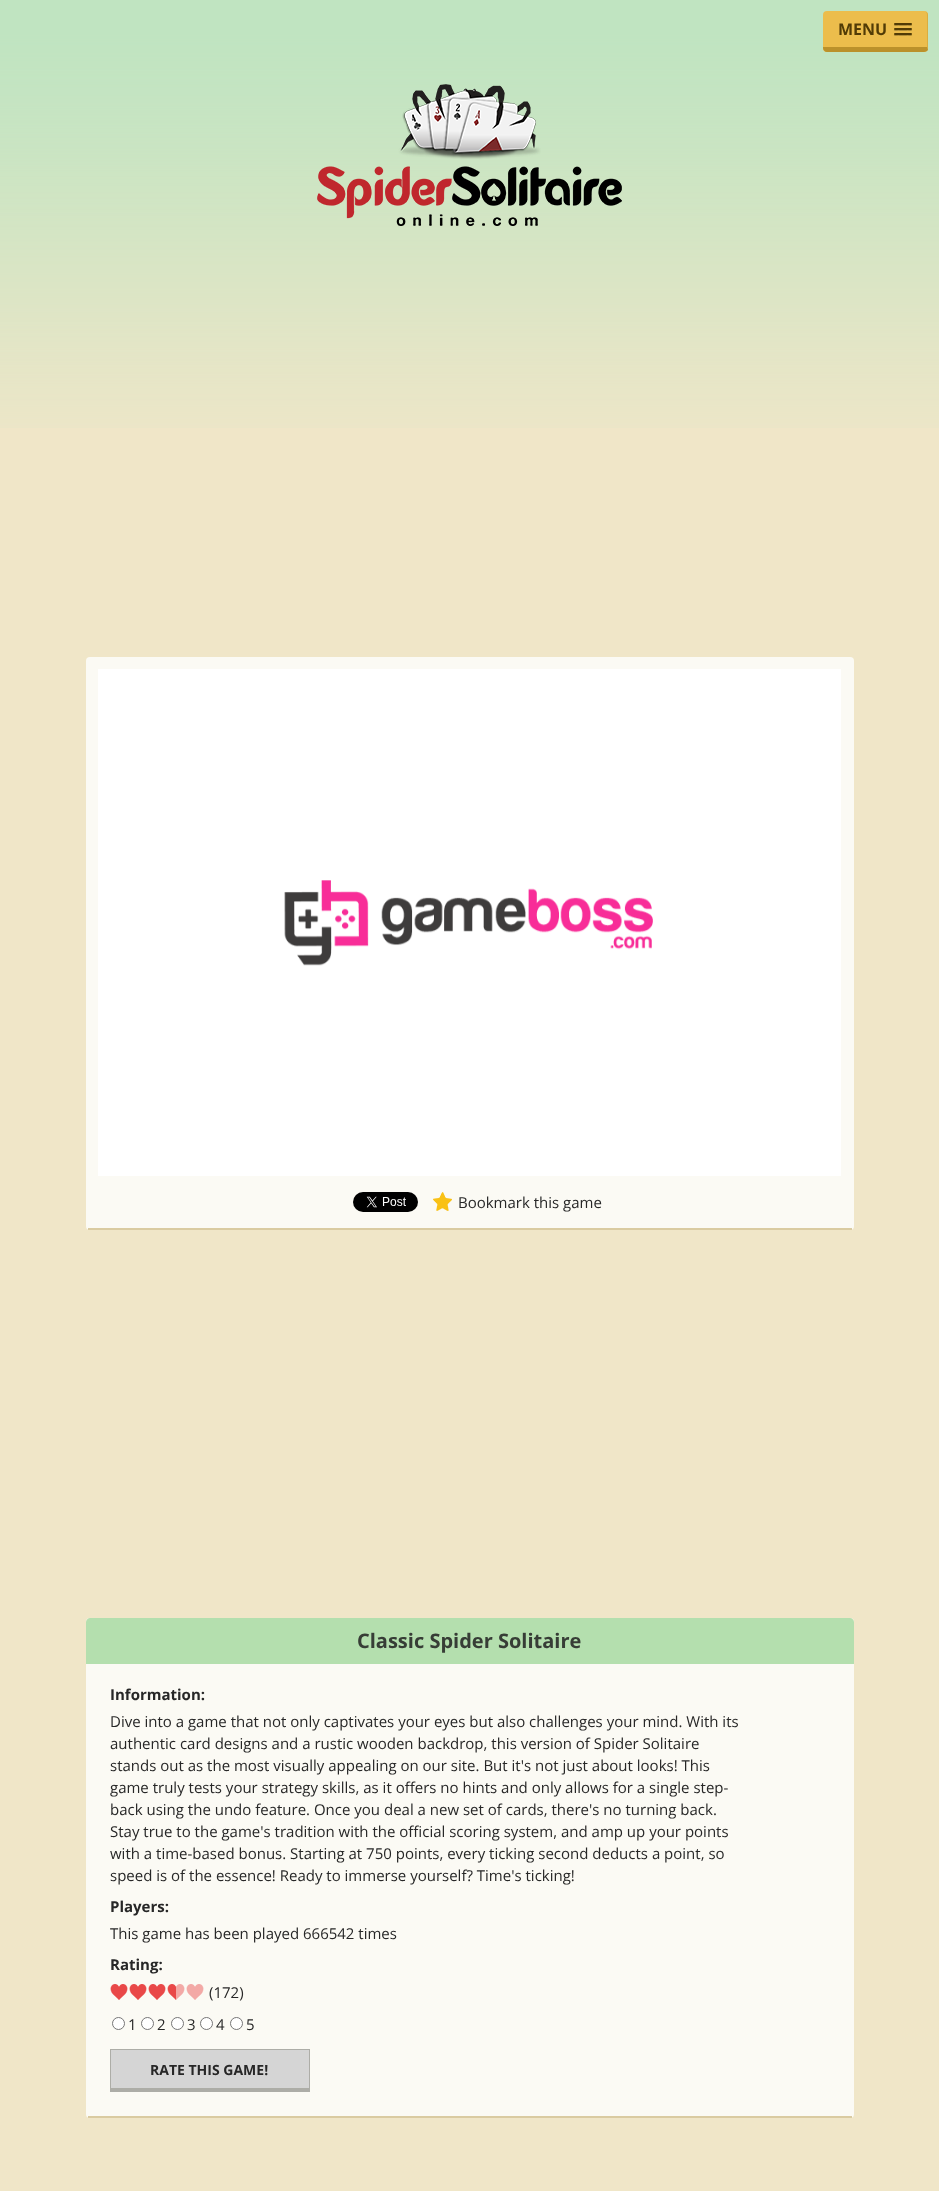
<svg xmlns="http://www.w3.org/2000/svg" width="939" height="2191">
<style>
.a{font:bold 16px Open Sans;fill:#513b06}
.b{font:15px Open Sans;fill:#272727}
.c{font:bold 20px Open Sans;fill:#373d36}
.d{font:bold 15px Open Sans;fill:#272727}
.e{font:bold 14px Open Sans;fill:#272727}
</style>
<rect width="100%" height="100%" fill="#f0e6c8"/>
<image href="1.png" x="0" y="0" width="939" height="428"/>
<rect fill="#ecbd4c" x="823" y="11" width="105" height="41" rx="4"/>
<path fill="#daad3f" d="M928 15c0-2-2-4-4-4c2 0 3 2 3 4v32l.5 2.5l.5-1.5z"/>
<path fill="#bb912b" d="M823 47v1c0 2 2 4 4 4h97c1 0 3-1 4-2l-1-3z"/>
<path fill="#b18e39" d="M894 24.5c-1 2 3.5 1.5 3.5 1.5h11c0 0 4.5 .5 3.5-1.5c-1 1-7.5 .5-9 .5c-1.5 0-8 .5-9-.5z"/>
<rect fill="#513b06" x="894" y="23" width="18" height="2" rx="1"/>
<path fill="#b18e39" d="M894 29.5c-1 2 3.5 1.5 3.5 1.5h11c0 0 4.5 .5 3.5-1.5c-1 1-7.5 .5-9 .5c-1.5 0-8 .5-9-.5z"/>
<rect fill="#513b06" x="894" y="28" width="18" height="2" rx="1"/>
<path fill="#b18e39" d="M894 34.5c-1 2 3.5 1.5 3.5 1.5h11c0 0 4.5 .5 3.5-1.5c-1 1-7.5 .5-9 .5c-1.5 0-8 .5-9-.5z"/>
<rect fill="#513b06" x="894" y="33" width="18" height="2" rx="1"/>
<image href="2.png" x="317" y="84" width="305" height="142"/>
<rect fill="#fbfaf4" x="86" y="657" width="768" height="573" rx="4"/>
<path fill="#dacba1" d="M88 1228h764v2H88z"/>
<image href="3.png" x="98" y="669" width="743" height="507"/>
<image href="4.png" x="353" y="1192" width="65" height="20"/>
<image href="5.png" x="433" y="1192" width="19" height="19"/>
<rect fill="#fbfaf4" x="86" y="1618" width="768" height="500" rx="4"/>
<path fill="#dacba1" d="M88 2116h764v2H88z"/>
<path fill="#b4dfae" d="M90 1618h760c2 0 4 2 4 4v42h-768v-42c0-2 2-4 4-4z"/>
<image href="6.png" x="110" y="1984" width="94" height="16"/>
<circle fill="#fff" stroke="#767676" cx="118.5" cy="2023.5" r="6"/>
<circle fill="#fff" stroke="#767676" cx="147.5" cy="2023.5" r="6"/>
<circle fill="#fff" stroke="#767676" cx="177.5" cy="2023.5" r="6"/>
<circle fill="#fff" stroke="#767676" cx="206.5" cy="2023.5" r="6"/>
<circle fill="#fff" stroke="#767676" cx="236.5" cy="2023.5" r="6"/>
<path fill="#d5d5d5" d="M111 2050h198v38H111z"/>
<path fill="#adada7" d="M110 2049h200v1H110z"/>
<path fill="#adada7" d="M309 2049h1v43H309z"/>
<path fill="#adada7" d="M110 2088h200v4H110z"/>
<path fill="#adada7" d="M110 2049h1v43H110z"/>
<text class="a" x="838" y="35">MENU</text>
<text class="b" x="458" y="1208">Bookmark this game</text>
<text class="c" x="357" y="1648">Classic Spider Solitaire</text>
<text class="d" x="110" y="1700">Information:</text>
<text class="b" x="110" y="1727">Dive into a game that not only captivates your eyes but also challenges your mind. With its</text>
<text class="b" x="110" y="1749">authentic card designs and a rustic wooden backdrop, this version of Spider Solitaire</text>
<text class="b" x="110" y="1771">stands out as the most visually appealing on our site. But it's not just about looks! This</text>
<text class="b" x="110" y="1793">game truly tests your strategy skills, as it offers no hints and only allows for a single step-</text>
<text class="b" x="110" y="1815">back using the undo feature. Once you deal a new set of cards, there's no turning back.</text>
<text class="b" x="110" y="1837">Stay true to the game's tradition with the official scoring system, and amp up your points</text>
<text class="b" x="110" y="1859">with a time-based bonus. Starting at 750 points, every ticking second deducts a point, so</text>
<text class="b" x="110" y="1881">speed is of the essence! Ready to immerse yourself? Time's ticking!</text>
<text class="d" x="110" y="1912">Players:</text>
<text class="b" x="110" y="1939">This game has been played 666542 times</text>
<text class="d" x="110" y="1970">Rating:</text>
<text class="b" x="209" y="1998">(172)</text>
<text class="b" x="128" y="2030">1</text>
<text class="b" x="157" y="2030">2</text>
<text class="b" x="187" y="2030">3</text>
<text class="b" x="216" y="2030">4</text>
<text class="b" x="246" y="2030">5</text>
<text class="e" x="150" y="2075">RATE THIS GAME!</text>
</svg>
